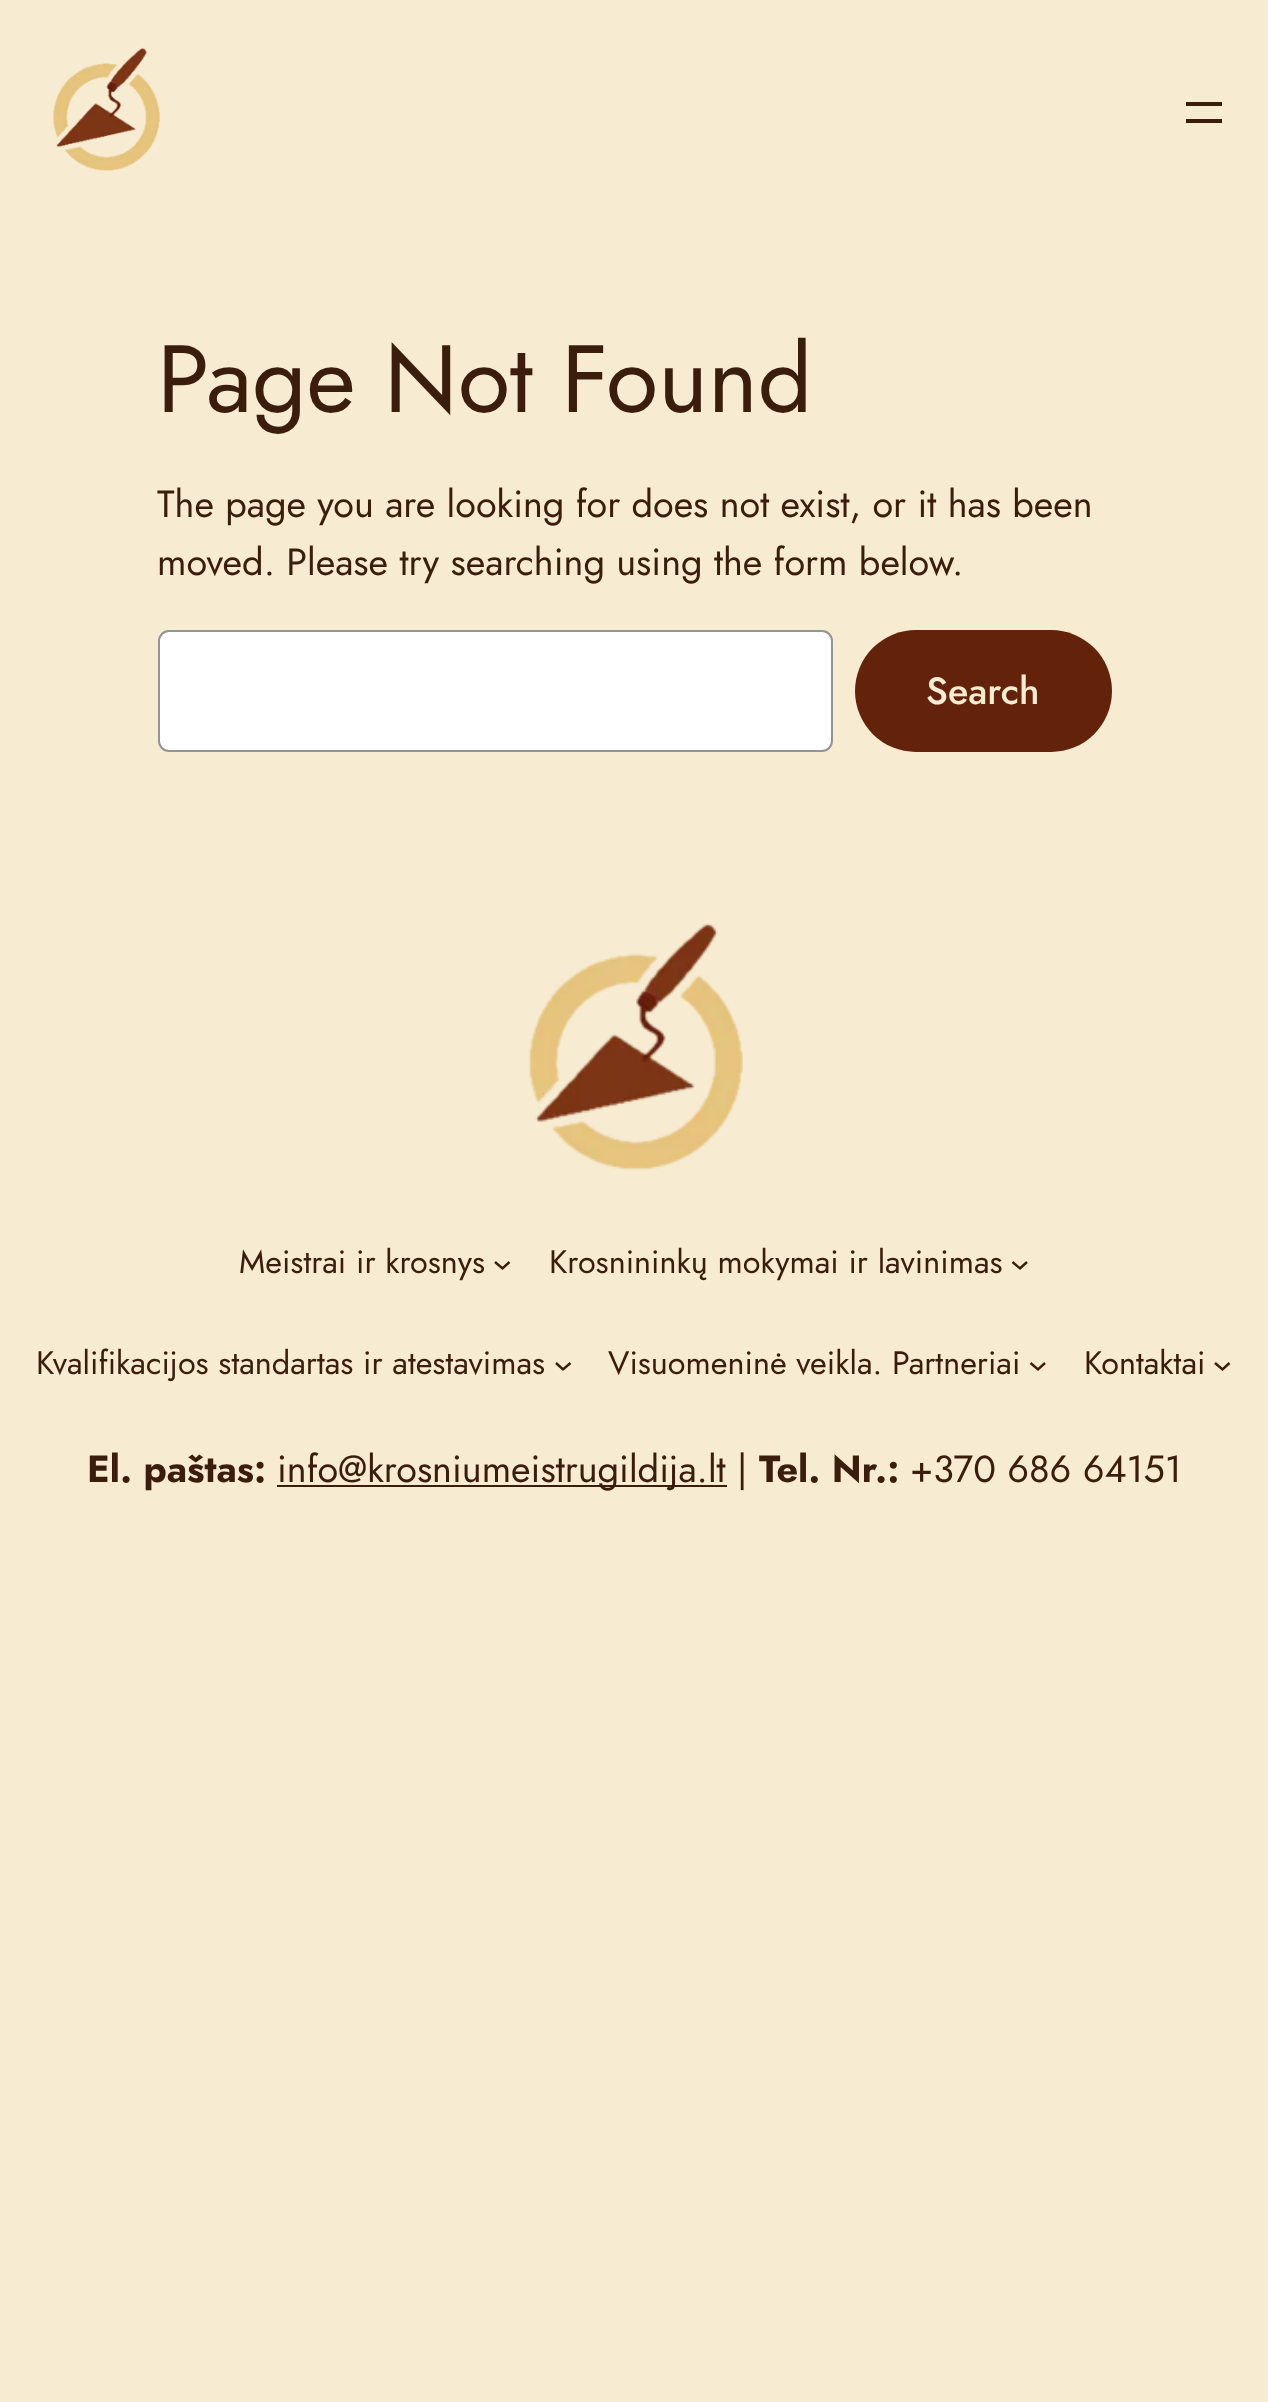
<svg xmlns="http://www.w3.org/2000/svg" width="1268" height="2402">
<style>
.a{font:95.25px Jost;fill:#3b1d0c}
.b{font:37.8px Jost;fill:#3b1d0c}
.c{font:500 37.8px Jost;fill:#f7ebd1}
.d{font:32.4px Jost;fill:#3b1d0c}
.e{font:bold 37.8px Jost;fill:#3b1d0c}
</style>
<rect width="100%" height="100%" fill="#f7ebd1"/>
<image href="1.png" x="53" y="47" width="107" height="124"/>
<path fill="#3b1d0c" d="M1186 102h36v4H1186z"/>
<path fill="#3b1d0c" d="M1186 119h36v4H1186z"/>
<rect fill="#fff" stroke="#949494" stroke-width="2" x="159" y="631" width="673" height="120" rx="10"/>
<rect fill="#63220a" x="855" y="630" width="257" height="122" rx="61"/>
<image href="2.png" x="528" y="923" width="215" height="247"/>
<path fill="none" stroke="#3b1d0c" stroke-width="2.4" d="M495 1262l7.5 6.5l7-6.5"/>
<path fill="none" stroke="#3b1d0c" stroke-width="2.4" d="M1012.5 1262l7.5 6.5l7-6.5"/>
<path fill="none" stroke="#3b1d0c" stroke-width="2.4" d="M556 1363l7 6.5l7.5-6.5"/>
<path fill="none" stroke="#3b1d0c" stroke-width="2.4" d="M1030.5 1363l7.5 6.5l7-6.5"/>
<path fill="none" stroke="#3b1d0c" stroke-width="2.4" d="M1215 1363l7.5 6.5l7-6.5"/>
<path fill="#3b1d0c" d="M277 1485h450v2H277z"/>
<text class="a" x="157" y="412">Page Not Found</text>
<text class="b" x="157" y="517">The page you are looking for does not exist, or it has been</text>
<text class="b" x="157" y="575">moved. Please try searching using the form below.</text>
<text class="c" x="926" y="704">Search</text>
<text class="d" x="239" y="1273">Meistrai ir krosnys</text>
<text class="d" x="549" y="1273">Krosnininkų mokymai ir lavinimas</text>
<text class="d" x="36" y="1374">Kvalifikacijos standartas ir atestavimas</text>
<text class="d" x="608" y="1374">Visuomeninė veikla. Partneriai</text>
<text class="d" x="1084" y="1374">Kontaktai</text>
<text class="e" x="87" y="1482">El. paštas:</text>
<text class="b" x="277" y="1482">info@krosniumeistrugildija.lt</text>
<text class="b" x="737" y="1482">|</text>
<text class="e" x="759" y="1482">Tel. Nr.:</text>
<text class="b" x="910" y="1482">+370 686 64151</text>
</svg>
